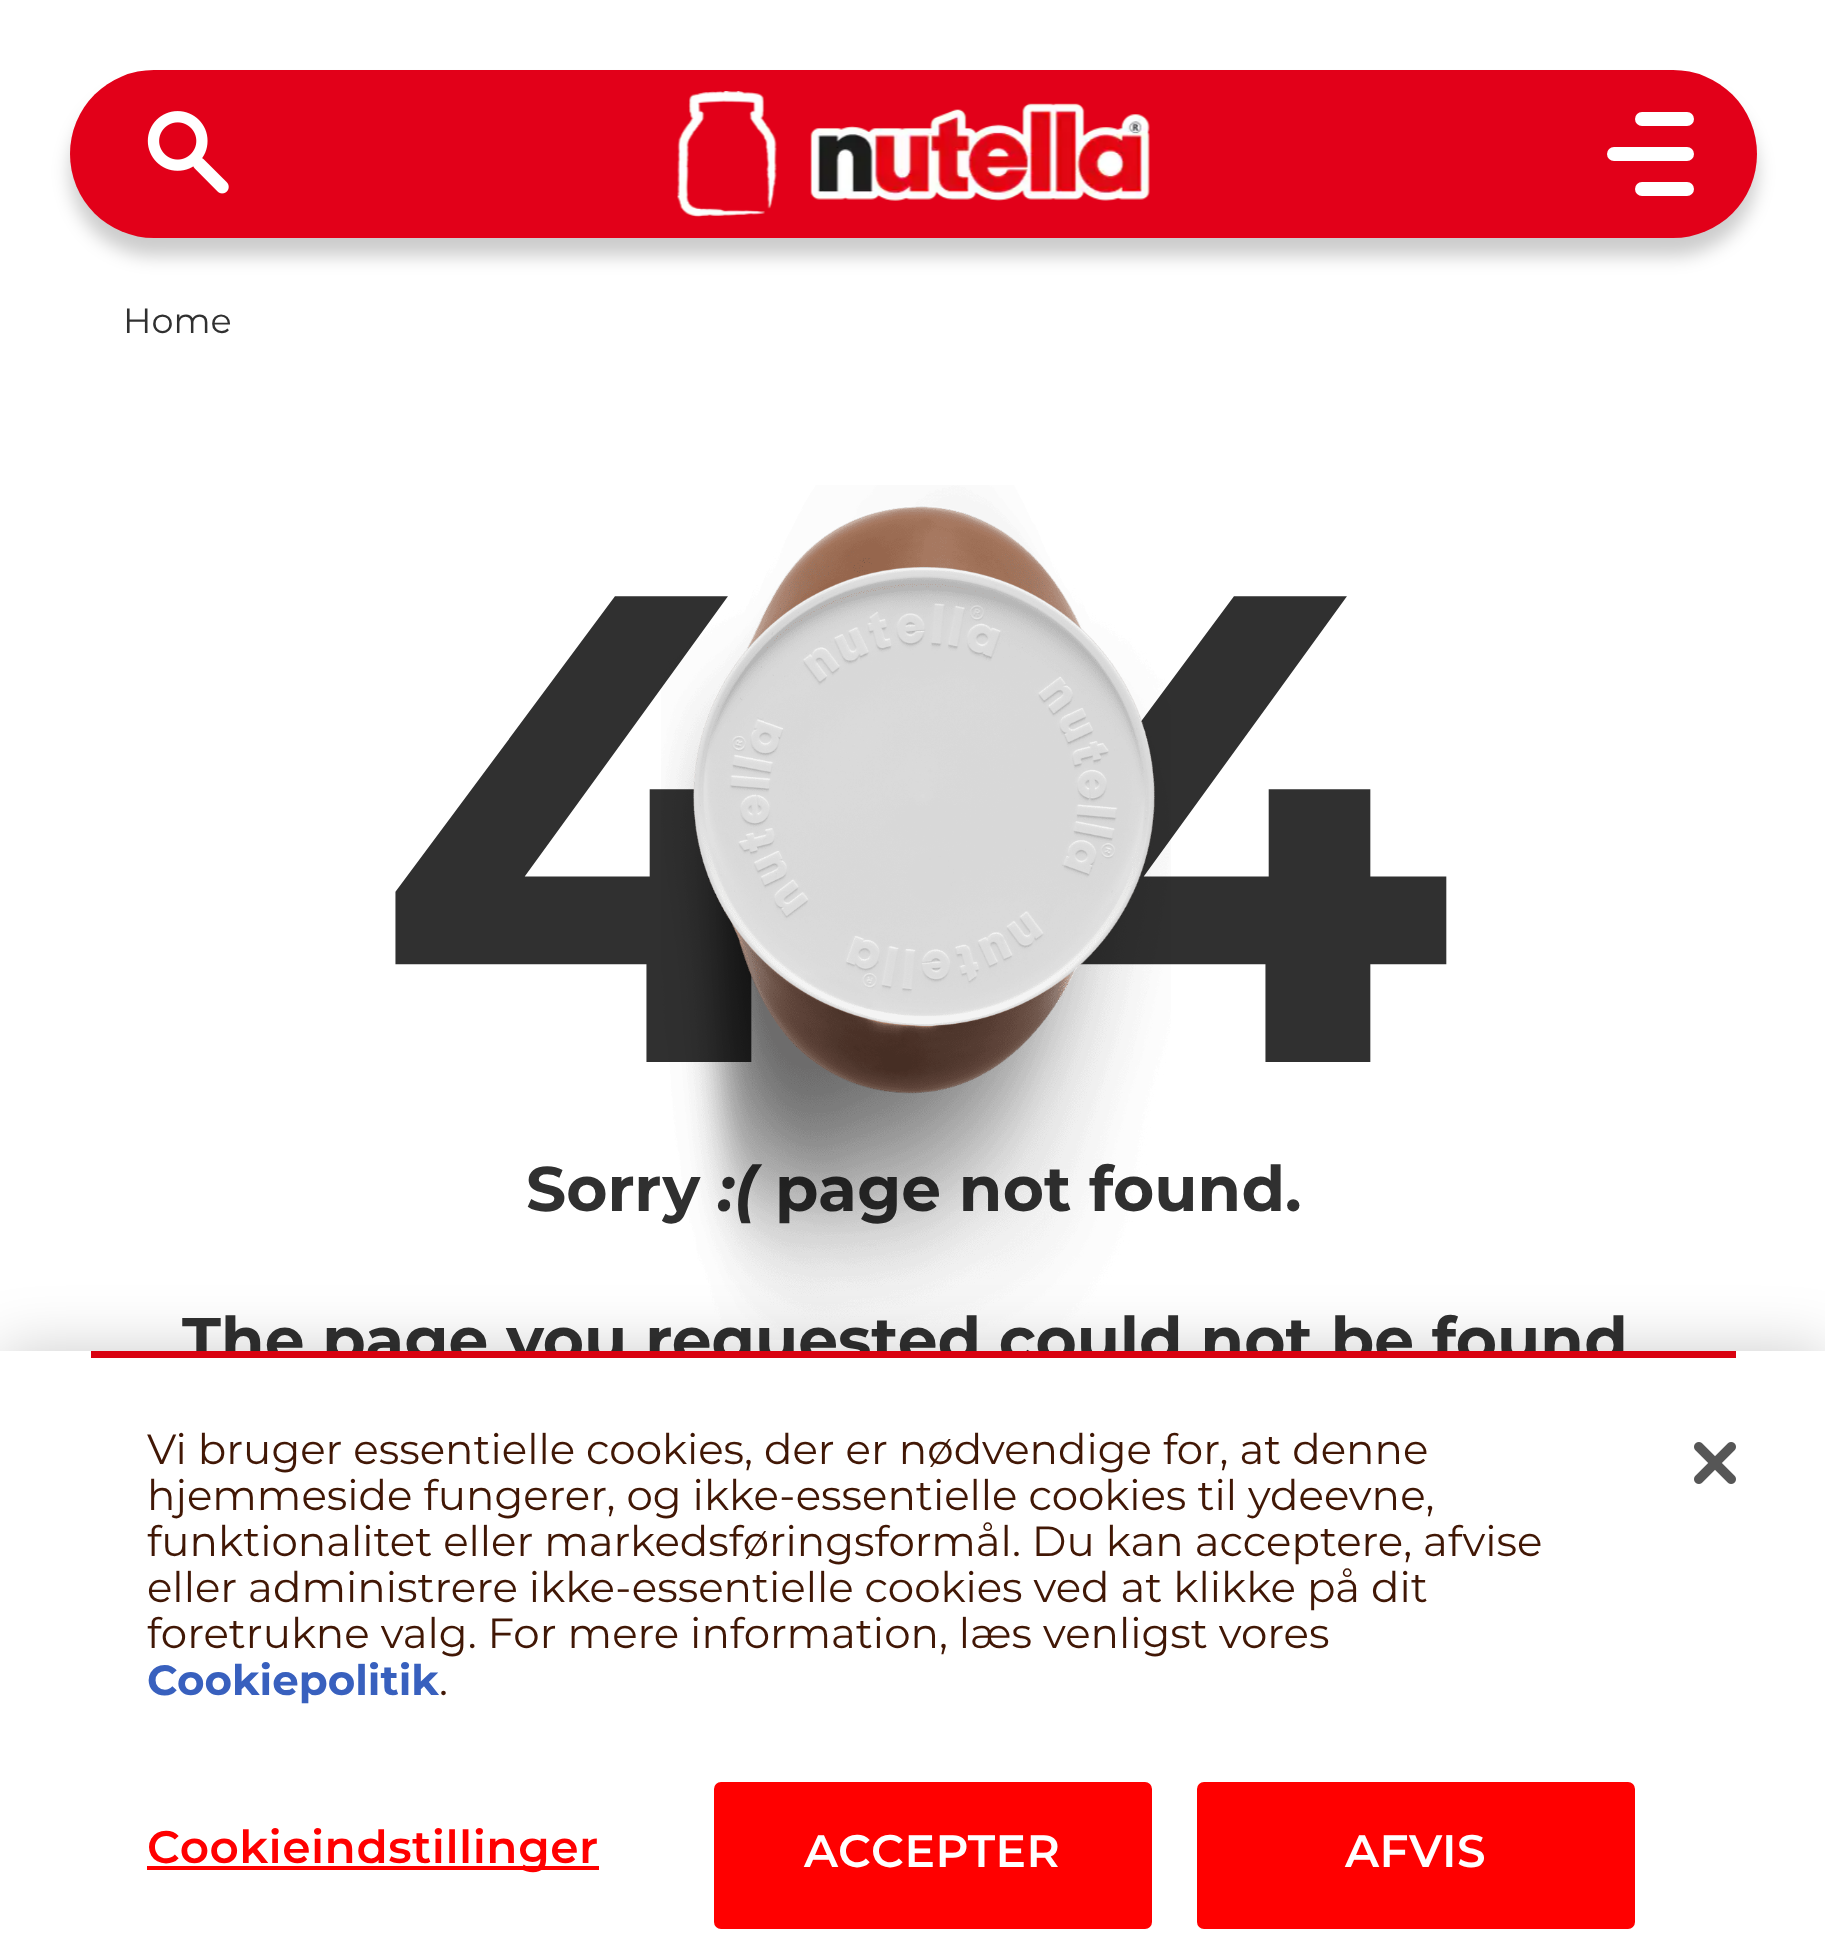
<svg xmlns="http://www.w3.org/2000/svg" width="1825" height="1936">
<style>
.a{font:35px Montserrat;fill:#303030}
.b{font:bold 665px Montserrat;fill:#303030}
.c{font:bold 63px Montserrat;fill:#303030}
.d{font:italic bold 63px Montserrat;fill:#303030}
.e{font:42px Montserrat;fill:#411705}
.f{font:bold 42px Montserrat;fill:#3860be}
.g{font:600 45.5px Montserrat;letter-spacing:0.5px;fill:#f00}
.h{font:600 45.5px Montserrat;letter-spacing:0.5px;fill:#fff}
</style>
<rect width="100%" height="100%" fill="#fff"/>
<rect fill="#00000033" filter="blur(9px)" x="70" y="88" width="1687" height="168" rx="84"/>
<rect fill="#e20019" x="70" y="70" width="1687" height="168" rx="84"/>
<image href="1.png" x="147" y="111" width="82" height="83"/>
<image href="2.png" x="677" y="91" width="473" height="126"/>
<rect fill="#fff" x="1607" y="147" width="87" height="14" rx="7"/>
<rect fill="#fff" x="1635" y="112" width="59" height="14" rx="7"/>
<rect fill="#fff" x="1635" y="182" width="59" height="14" rx="7"/>
<text class="a" x="123" y="333">Home</text>
<text class="b" x="375" y="1062">4</text>
<text class="b" x="994" y="1062">4</text>
<text class="c" x="526" y="1211">Sorry</text>
<text class="d" x="718" y="1211">:(</text>
<text class="c" x="775" y="1211">page not found.</text>
<text class="c" x="182" y="1362">The page you requested could not be found</text>
<image href="3.png" x="661" y="485" width="510" height="855"/>
<path fill="#00000033" filter="blur(31.5px)" d="M0 1351h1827v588H0z"/>
<path fill="#fff" d="M0 1351h1825v585H0z"/>
<path fill="#d90210" d="M91 1351h1645v7H91z"/>
<text class="e" x="147" y="1464">Vi bruger essentielle cookies, der er nødvendige for, at denne</text>
<text class="e" x="147" y="1510">hjemmeside fungerer, og ikke-essentielle cookies til ydeevne,</text>
<text class="e" x="147" y="1556">funktionalitet eller markedsføringsformål. Du kan acceptere, afvise</text>
<text class="e" x="147" y="1602">eller administrere ikke-essentielle cookies ved at klikke på dit</text>
<text class="e" x="147" y="1648">foretrukne valg. For mere information, læs venligst vores</text>
<text class="f" x="147" y="1695">Cookiepolitik</text>
<text class="e" x="439" y="1695">.</text>
<path fill="#f00" d="M147 1866h452v4H147z"/>
<text class="g" x="147" y="1863">Cookieindstillinger</text>
<rect fill="#f00" stroke="#f00" stroke-width="4" x="716" y="1784" width="434" height="143" rx="5"/>
<text class="h" x="804" y="1867">ACCEPTER</text>
<rect fill="#f00" stroke="#f00" stroke-width="4" x="1199" y="1784" width="434" height="143" rx="5"/>
<text class="h" x="1345" y="1867">AFVIS</text>
<image href="4.png" x="1694" y="1442" width="42" height="42"/>
</svg>
